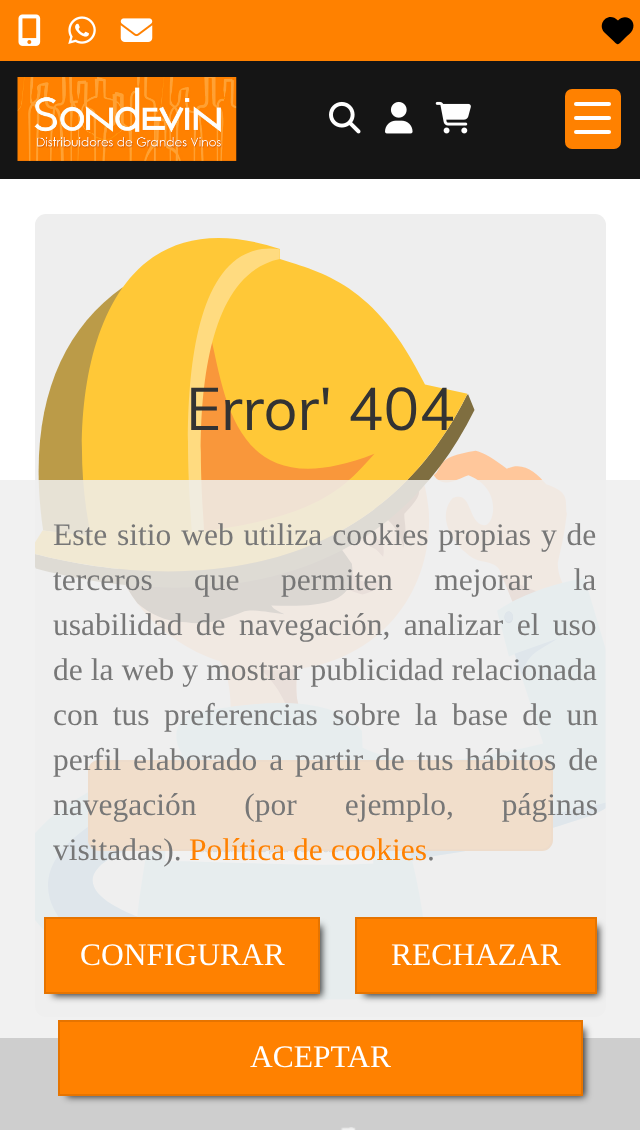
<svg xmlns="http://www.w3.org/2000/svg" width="640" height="1130">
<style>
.a{font:59.5px Muli;fill:#333}
.b{font:31.5px Liberation Serif;fill:#777}
.c{font:31.5px Liberation Serif;fill:#ff8100}
.d{font:31.5px Liberation Serif;fill:#fff}
</style>
<rect width="100%" height="100%" fill="#fff"/>
<path fill="#ff8100" d="M0 0h640v61H0z"/>
<image href="1.png" x="18" y="14" width="23" height="32"/>
<image href="2.png" x="68" y="16" width="28" height="28"/>
<image href="3.png" x="120" y="18" width="33" height="24"/>
<path fill="#000" d="M605 33l9 8.5c3.5 3.5 4 3.5 7.5 0l3.5-3.5c2.5-2.5 6-5 7.5-8c4.5-9.5-7-17.5-14.5-9.5c-10-10-22 4-13 12.5z"/>
<path fill="#151515" d="M0 61h640v118H0z"/>
<image href="4.png" x="17" y="77" width="220" height="84"/>
<image href="5.png" x="329" y="101" width="32" height="33"/>
<image href="6.png" x="385" y="101" width="28" height="33"/>
<image href="7.png" x="435" y="101" width="36" height="33"/>
<rect fill="#ff8100" x="565" y="89" width="56" height="60" rx="7"/>
<rect fill="#fff" x="574" y="116" width="37" height="4" rx="2"/>
<rect fill="#fff" x="574" y="102" width="37" height="4" rx="2"/>
<rect fill="#fff" x="574" y="130" width="37" height="4" rx="2"/>
<rect fill="#eee" x="35" y="214" width="571" height="803" rx="11"/>
<image href="8.png" x="35" y="238" width="571" height="763"/>
<rect fill="#ff8100" stroke="#e67400" stroke-width="2" x="89" y="761" width="463" height="89" rx="10"/>
<path fill="#151515" d="M0 1038h640v92H0z"/>
<image href="9.png" x="340" y="1127" width="17" height="3"/>
<path fill="#eeeeeed9" d="M0 480h640v650H0z"/>
<path fill="#000000bf" filter="blur(3.5px)" d="M53 926h269v70H53z"/>
<path fill="#ff8100" stroke="#e67400" stroke-width="2" d="M45 918h274v75H45z"/>
<path fill="#000000bf" filter="blur(3.5px)" d="M364 926h235v70H364z"/>
<path fill="#ff8100" stroke="#e67400" stroke-width="2" d="M356 918h240v75H356z"/>
<path fill="#000000bf" filter="blur(3.5px)" d="M67 1029h518v68H67z"/>
<path fill="#ff8100" stroke="#e67400" stroke-width="2" d="M59 1021h523v74H59z"/>
<text class="a" x="186" y="430">Error' 404</text>
<text class="b" x="53" y="545" word-spacing="2">Este sitio web utiliza cookies propias y de</text>
<text class="b" x="53" y="590" word-spacing="33.5">terceros que permiten mejorar la</text>
<text class="b" x="53" y="635" word-spacing="5.5">usabilidad de navegación, analizar el uso</text>
<text class="b" x="53" y="680" word-spacing="0.25">de la web y mostrar publicidad relacionada</text>
<text class="b" x="53" y="725" word-spacing="6.5">con tus preferencias sobre la base de un</text>
<text class="b" x="53" y="770" word-spacing="4">perfil elaborado a partir de tus hábitos de</text>
<text class="b" x="53" y="815" word-spacing="40">navegación (por ejemplo, páginas</text>
<text class="b" x="53" y="860">visitadas).</text>
<text class="c" x="189" y="860">Política de cookies</text>
<text class="b" x="427" y="860">.</text>
<text class="d" x="80" y="965">CONFIGURAR</text>
<text class="d" x="391" y="965">RECHAZAR</text>
<text class="d" x="250" y="1067">ACEPTAR</text>
</svg>
